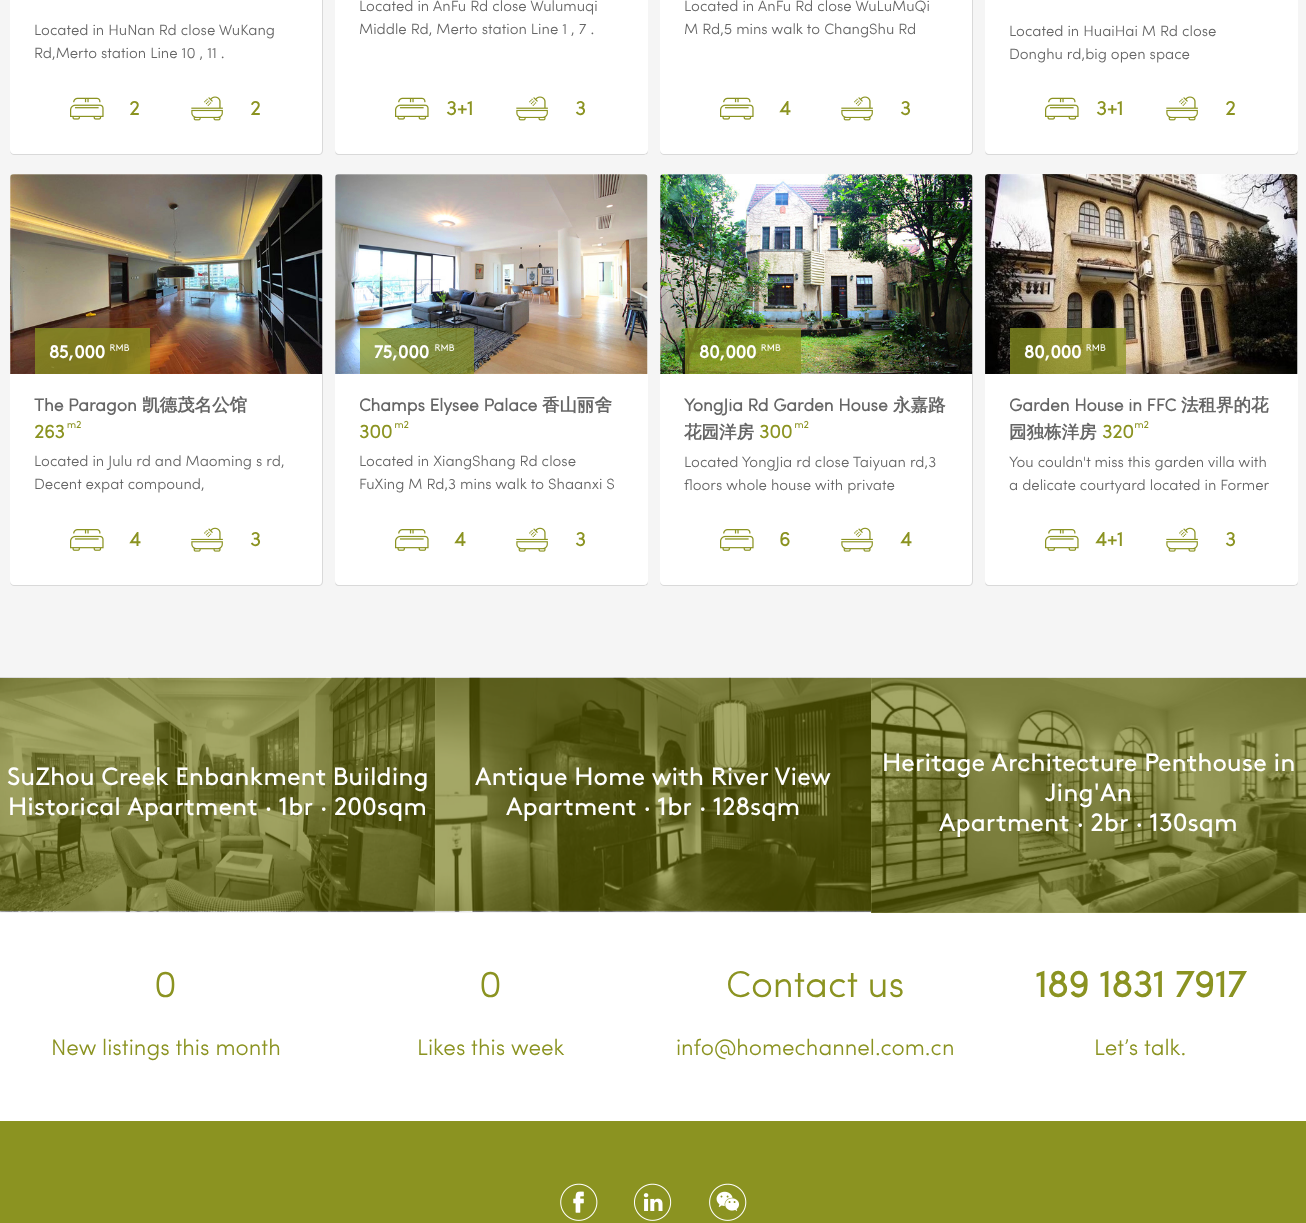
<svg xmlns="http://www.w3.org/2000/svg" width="1306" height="1223">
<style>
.a{font:300 15px Sofia;fill:#666}
.b{font:bold 20px Sofia;fill:#8b9321}
.c{font:bold 17.5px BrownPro;fill:#fff}
.d{font:bold 17.5px Sofia;fill:#666}
.e{font:bold 17.5px WenQuanYi Zen Hei;fill:#666}
.f{font:bold 19px Sofia;fill:#8b9321}
.g{font:25px BrownPro;fill:#fff}
.h{font:300 37.5px Sofia;fill:#8b9321}
.i{font:300 22.5px Sofia;fill:#8b9321}
.j{font:bold 37.5px Sofia;fill:#8b9321}
</style>
<rect width="100%" height="100%" fill="#f5f5f5"/>
<path fill="#fff" d="M10-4h313v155c0 2-2 4-4 4h-305c-2 0-4-2-4-4z"/>
<path fill="#d9d9d9" d="M10 150v1c0 2 2 4 4 4h305c2 0 4-2 4-4v-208h-1v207c0 2-1 4-3 4h-305c-2 0-4-2-4-4z"/>
<image href="1.png" x="70" y="97" width="34" height="23"/>
<image href="2.png" x="191" y="96" width="32" height="25"/>
<path fill="#fff" d="M335-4h313v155c0 2-2 4-4 4h-305c-2 0-4-2-4-4z"/>
<path fill="#d9d9d9" d="M335 150c0 3 1 5 4 5h305l3-1c1-1 1-3 1-4c0 2-2 4-4 4h-305c-2 0-4-2-4-4z"/>
<image href="1.png" x="395" y="97" width="34" height="23"/>
<image href="2.png" x="516" y="96" width="32" height="25"/>
<path fill="#fff" d="M660-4h313v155c0 2-2 4-4 4h-305c-2 0-4-2-4-4z"/>
<path fill="#d9d9d9" d="M660 150v1c0 2 2 4 4 4h305c2 0 4-2 4-4v-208h-1v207c0 2-1 4-3 4h-305c-2 0-4-2-4-4z"/>
<image href="1.png" x="720" y="97" width="34" height="23"/>
<image href="2.png" x="841" y="96" width="32" height="25"/>
<path fill="#fff" d="M985-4h313v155c0 2-2 4-4 4h-305c-2 0-4-2-4-4z"/>
<path fill="#d9d9d9" d="M985 150c0 3 1 5 4 5h305l3-1c1-1 1-3 1-4c0 2-2 4-4 4h-305c-2 0-4-2-4-4z"/>
<image href="1.png" x="1045" y="97" width="34" height="23"/>
<image href="2.png" x="1166" y="96" width="32" height="25"/>
<image href="3.png" x="10" y="174" width="313" height="200"/>
<path fill="#8b9321bf" d="M35 328h115v46H35z"/>
<image href="4.png" x="110" y="344" width="20" height="7"/>
<path fill="#fff" d="M10 374h313v208c0 2-2 4-4 4h-305c-2 0-4-2-4-4z"/>
<path fill="#d9d9d9" d="M10 581v1c0 2 2 4 4 4h305c2 0 4-2 4-4v-208h-1v207c0 2-1 4-3 4h-305c-2 0-4-2-4-4z"/>
<image href="5.png" x="67" y="420" width="14" height="8"/>
<image href="6.png" x="70" y="529" width="34" height="22"/>
<image href="7.png" x="191" y="527" width="32" height="25"/>
<image href="8.png" x="335" y="174" width="313" height="200"/>
<path fill="#8b9321bf" d="M360 328h114v46H360z"/>
<image href="9.png" x="435" y="344" width="20" height="7"/>
<path fill="#fff" d="M335 374h313v208c0 2-2 4-4 4h-305c-2 0-4-2-4-4z"/>
<path fill="#d9d9d9" d="M335 581c0 3 1 5 4 5h305l3-1c1-1 1-3 1-4c0 2-2 4-4 4h-305c-2 0-4-2-4-4z"/>
<image href="10.png" x="395" y="420" width="14" height="8"/>
<image href="6.png" x="395" y="529" width="34" height="22"/>
<image href="7.png" x="516" y="527" width="32" height="25"/>
<image href="11.png" x="660" y="174" width="313" height="200"/>
<path fill="#8b9321bf" d="M685 328h116v46H685z"/>
<image href="12.png" x="761" y="344" width="20" height="7"/>
<path fill="#fff" d="M660 374h313v208c0 2-2 4-4 4h-305c-2 0-4-2-4-4z"/>
<path fill="#d9d9d9" d="M660 581v1c0 2 2 4 4 4h305c2 0 4-2 4-4v-208h-1v207c0 2-1 4-3 4h-305c-2 0-4-2-4-4z"/>
<image href="10.png" x="795" y="420" width="14" height="8"/>
<image href="6.png" x="720" y="529" width="34" height="22"/>
<image href="7.png" x="841" y="527" width="32" height="25"/>
<image href="13.png" x="985" y="174" width="313" height="200"/>
<path fill="#8b9321bf" d="M1010 328h116v46H1010z"/>
<image href="14.png" x="1086" y="344" width="20" height="7"/>
<path fill="#fff" d="M985 374h313v208c0 2-2 4-4 4h-305c-2 0-4-2-4-4z"/>
<path fill="#d9d9d9" d="M985 581c0 3 1 5 4 5h305l3-1c1-1 1-3 1-4c0 2-2 4-4 4h-305c-2 0-4-2-4-4z"/>
<image href="10.png" x="1135" y="420" width="14" height="8"/>
<image href="6.png" x="1045" y="529" width="34" height="22"/>
<image href="7.png" x="1166" y="527" width="32" height="25"/>
<image href="15.png" x="0" y="677" width="435" height="235"/>
<image href="16.png" x="435" y="677" width="437" height="235"/>
<path fill="#fff" d="M871 678h435v235H871z"/>
<image href="17.png" x="871" y="677" width="435" height="236"/>
<path fill="#686c0099" d="M871 678h435v235H871z"/>
<path fill="#fff" d="M0 913h1306v208H0z"/>
<path fill="#8b9321" d="M0 1121h1306v102H0z"/>
<image href="18.png" x="560" y="1183" width="38" height="38"/>
<image href="19.png" x="634" y="1183" width="38" height="38"/>
<image href="20.png" x="709" y="1183" width="38" height="38"/>
<text class="a" x="34" y="35">Located in HuNan Rd close WuKang</text>
<text class="a" x="34" y="58">Rd,Merto station Line 10 , 11 .</text>
<text class="b" x="129" y="115">2</text>
<text class="b" x="250" y="115">2</text>
<text class="a" x="359" y="11">Located in AnFu Rd close Wulumuqi</text>
<text class="a" x="359" y="34">Middle Rd, Merto station Line 1 , 7 .</text>
<text class="b" x="446" y="115">3+1</text>
<text class="b" x="575" y="115">3</text>
<text class="a" x="684" y="11">Located in AnFu Rd close WuLuMuQi</text>
<text class="a" x="684" y="34">M Rd,5 mins walk to ChangShu Rd</text>
<text class="b" x="779" y="115">4</text>
<text class="b" x="900" y="115">3</text>
<text class="a" x="1009" y="36">Located in HuaiHai M Rd close</text>
<text class="a" x="1009" y="59">Donghu rd,big open space</text>
<text class="b" x="1096" y="115">3+1</text>
<text class="b" x="1225" y="115">2</text>
<text class="c" x="49" y="358">85,000</text>
<text class="d" x="34" y="411">The Paragon</text>
<text class="e" x="142" y="411">凯德茂名公馆</text>
<text class="f" x="34" y="438">263</text>
<text class="a" x="34" y="466">Located in Julu rd and Maoming s rd,</text>
<text class="a" x="34" y="489">Decent expat compound,</text>
<text class="b" x="129" y="546">4</text>
<text class="b" x="250" y="546">3</text>
<text class="c" x="374" y="358">75,000</text>
<text class="d" x="359" y="411">Champs Elysee Palace</text>
<text class="e" x="542" y="411">香山丽舍</text>
<text class="f" x="359" y="438">300</text>
<text class="a" x="359" y="466">Located in XiangShang Rd close</text>
<text class="a" x="359" y="489">FuXing M Rd,3 mins walk to Shaanxi S</text>
<text class="b" x="454" y="546">4</text>
<text class="b" x="575" y="546">3</text>
<text class="c" x="699" y="358">80,000</text>
<text class="d" x="684" y="411">YongJia Rd Garden House</text>
<text class="e" x="893" y="411">永嘉路</text>
<text class="e" x="684" y="438">花园洋房</text>
<text class="f" x="759" y="438">300</text>
<text class="a" x="684" y="467">Located YongJia rd close Taiyuan rd,3</text>
<text class="a" x="684" y="490">floors whole house with private</text>
<text class="b" x="779" y="546">6</text>
<text class="b" x="900" y="546">4</text>
<text class="c" x="1024" y="358">80,000</text>
<text class="d" x="1009" y="411">Garden House in FFC</text>
<text class="e" x="1181" y="411">法租界的花</text>
<text class="e" x="1009" y="438">园独栋洋房</text>
<text class="f" x="1102" y="438">320</text>
<text class="a" x="1009" y="467">You couldn't miss this garden villa with</text>
<text class="a" x="1009" y="490">a delicate courtyard located in Former</text>
<text class="b" x="1095" y="546">4+1</text>
<text class="b" x="1225" y="546">3</text>
<text class="g" x="7" y="785">SuZhou Creek Enbankment Building</text>
<text class="g" x="8" y="815">Historical Apartment · 1br · 200sqm</text>
<text class="g" x="475" y="785">Antique Home with River View</text>
<text class="g" x="506" y="815">Apartment · 1br · 128sqm</text>
<text class="g" x="882" y="771">Heritage Architecture Penthouse in</text>
<text class="g" x="1045" y="801">Jing'An</text>
<text class="g" x="939" y="831">Apartment · 2br · 130sqm</text>
<text class="h" x="154" y="997">0</text>
<text class="i" x="51" y="1055">New listings this month</text>
<text class="h" x="479" y="997">0</text>
<text class="i" x="417" y="1055">Likes this week</text>
<text class="h" x="726" y="997">Contact us</text>
<text class="i" x="676" y="1055">info@homechannel.com.cn</text>
<text class="j" x="1035" y="997">189 1831 7917</text>
<text class="i" x="1094" y="1055">Let’s talk.</text>
</svg>
